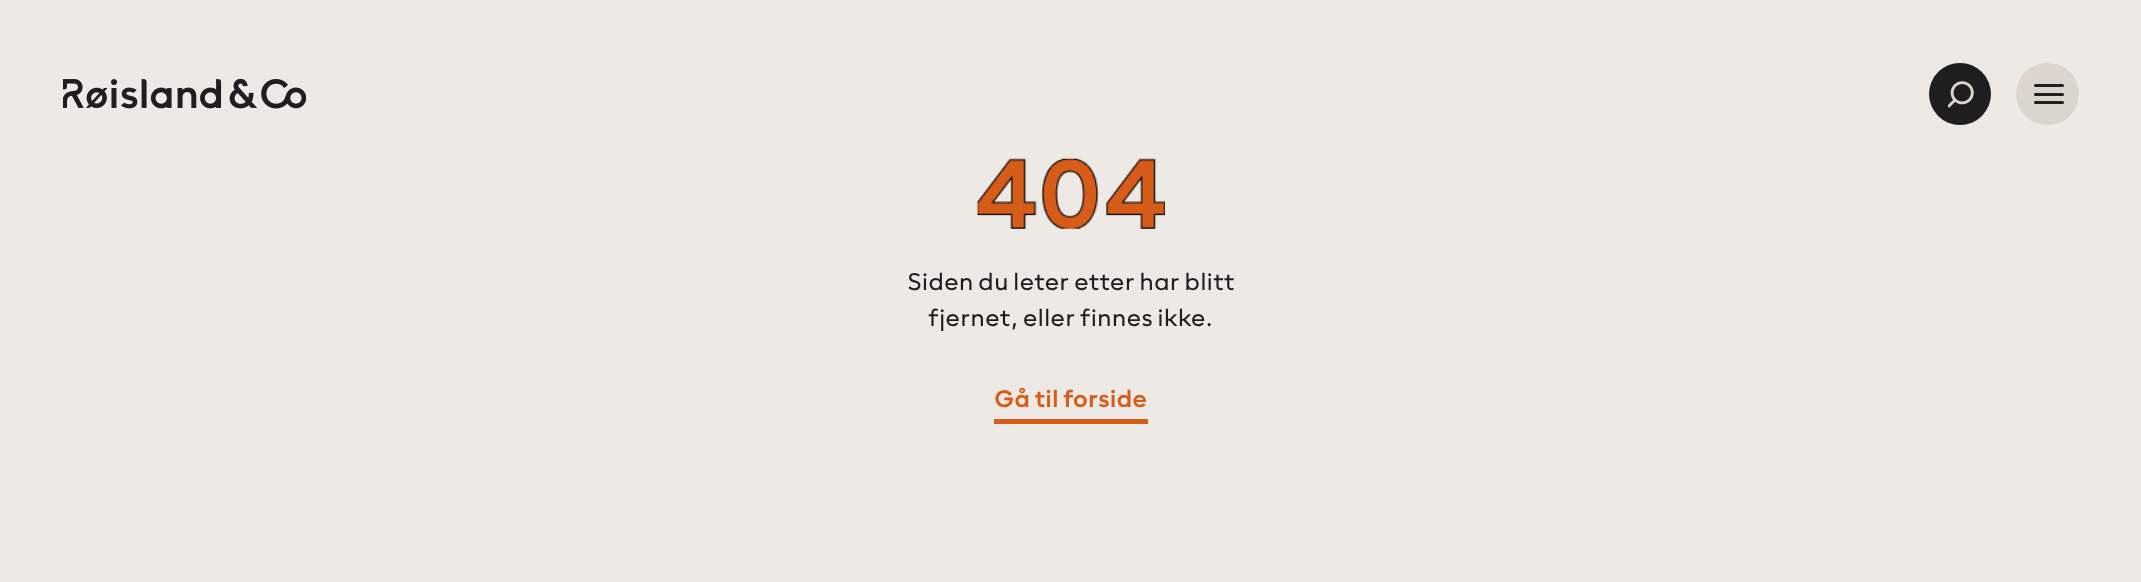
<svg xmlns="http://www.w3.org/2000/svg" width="2141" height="582">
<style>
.a{font:25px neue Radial;fill:#1e1e1e}
.b{font:500 25px neue Radial;fill:#d55c19}
</style>
<rect width="100%" height="100%" fill="#edeae6"/>
<image href="1.png" x="63" y="79" width="243" height="30"/>
<circle fill="#1e1e1e" cx="1960" cy="94" r="31"/>
<image href="2.png" x="1948" y="81" width="26" height="27"/>
<rect fill="#dbd5cd" x="2016" y="63" width="63" height="62" rx="31"/>
<rect fill="#1e1e1e" x="2034" y="84" width="30" height="3" rx="1.5"/>
<rect fill="#1e1e1e" x="2034" y="93" width="30" height="3" rx="1.5"/>
<rect fill="#1e1e1e" x="2034" y="101" width="30" height="3" rx="1.5"/>
<image href="3.png" x="977" y="158" width="188" height="71"/>
<path fill="#d55c19" d="M994 419h154v5H994z"/>
<text class="a" x="907" y="290">Siden du leter etter har blitt</text>
<text class="a" x="928" y="326">fjernet, eller finnes ikke.</text>
<text class="b" x="994" y="407">Gå til forside</text>
</svg>
